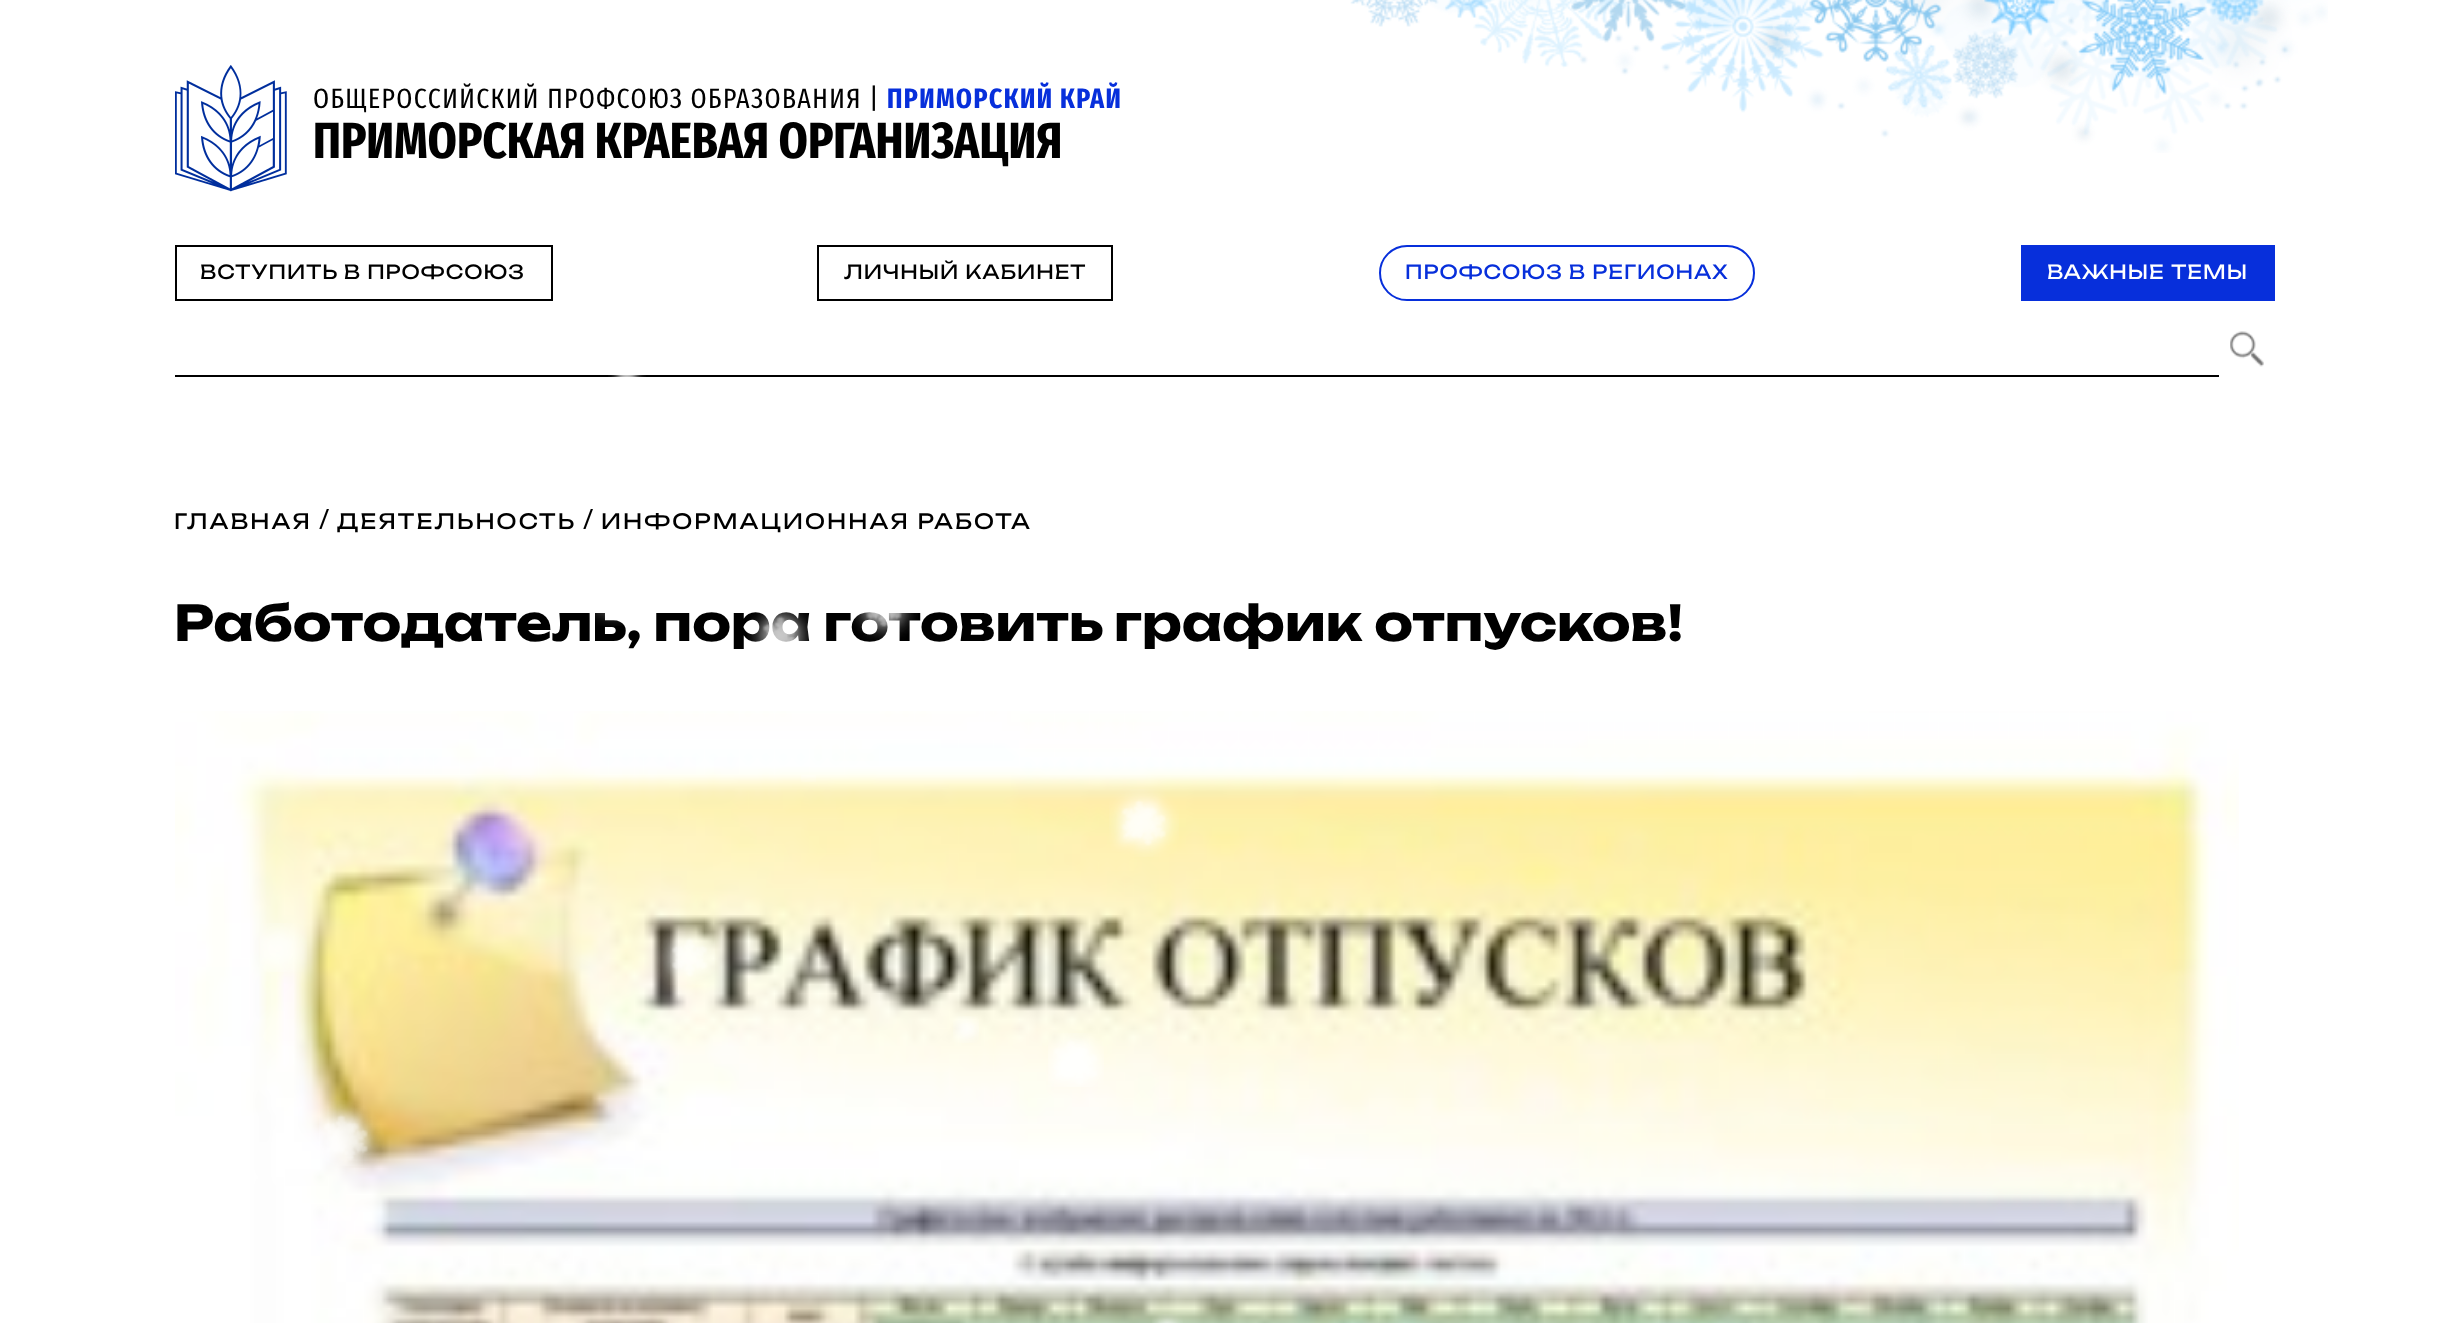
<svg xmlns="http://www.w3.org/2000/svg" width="2447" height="1323">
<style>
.a{font:28px Fira Sans Extra Condensed;letter-spacing:1.4px;fill:#000}
.b{font:bold 28px Fira Sans Extra Condensed;letter-spacing:1.4px;fill:#072fdb}
.c{font:bold 50.75px Fira Sans Extra Condensed;fill:#000}
.d{font:19.25px Unbounded;letter-spacing:1px;fill:#000}
.e{font:19.25px Unbounded;letter-spacing:1px;fill:#072fdb}
.f{font:19.25px Unbounded;letter-spacing:1px;fill:#fff}
.g{font:21px Unbounded;letter-spacing:2.1px;fill:#000}
.h{font:28px Open Sans;fill:#000}
.i{font:bold 49px Unbounded;fill:#000}
</style>
<rect width="100%" height="100%" fill="#fff"/>
<image href="1.png" x="175" y="65" width="112" height="127"/>
<image href="2.png" x="1350" y="0" width="978" height="153"/>
<path fill="none" stroke="#000" stroke-width="2" d="M176 246h376v54H176z"/>
<path fill="none" stroke="#000" stroke-width="2" d="M818 246h294v54H818z"/>
<rect fill="none" stroke="#072fdb" stroke-width="2" x="1380" y="246" width="374" height="54" rx="27"/>
<path fill="#072fdb" d="M2021 245h254v56H2021z"/>
<image href="3.png" x="2230" y="331" width="34" height="36"/>
<path fill="#000" d="M175 375h2044v2H175z"/>
<image href="4.png" x="608" y="375" width="38" height="2"/>
<image href="5.png" x="175" y="711" width="2064" height="612"/>
<image href="9.png" x="801" y="775" width="15" height="7"/>
<image href="10.png" x="1109" y="789" width="70" height="68"/>
<image href="11.png" x="260" y="923" width="47" height="49"/>
<image href="12.png" x="657" y="925" width="58" height="60"/>
<image href="13.png" x="953" y="1016" width="26" height="27"/>
<image href="14.png" x="1048" y="1033" width="56" height="54"/>
<image href="15.png" x="319" y="1100" width="65" height="66"/>
<image href="16.png" x="1152" y="1314" width="31" height="9"/>
<text class="a" x="313" y="108">ОБЩЕРОССИЙСКИЙ ПРОФСОЮЗ ОБРАЗОВАНИЯ |</text>
<text class="b" x="887" y="108">ПРИМОРСКИЙ КРАЙ</text>
<text class="c" x="313" y="158">ПРИМОРСКАЯ КРАЕВАЯ ОРГАНИЗАЦИЯ</text>
<text class="d" x="200" y="279">ВСТУПИТЬ В ПРОФСОЮЗ</text>
<text class="d" x="844" y="279">ЛИЧНЫЙ КАБИНЕТ</text>
<text class="e" x="1405" y="279">ПРОФСОЮЗ В РЕГИОНАХ</text>
<text class="f" x="2047" y="279" word-spacing="1">ВАЖНЫЕ ТЕМЫ</text>
<text class="g" x="174" y="529">ГЛАВНАЯ</text>
<text class="h" x="319" y="529">/</text>
<text class="g" x="337" y="529">ДЕЯТЕЛЬНОСТЬ</text>
<text class="h" x="583" y="529">/</text>
<text class="g" x="601" y="529">ИНФОРМАЦИОННАЯ РАБОТА</text>
<text class="i" x="174" y="641">Работодатель, пора готовить график отпусков!</text>
<image href="6.png" x="588" y="613" width="36" height="13"/>
<image href="7.png" x="747" y="612" width="63" height="30"/>
<image href="8.png" x="850" y="612" width="68" height="29"/>
</svg>
